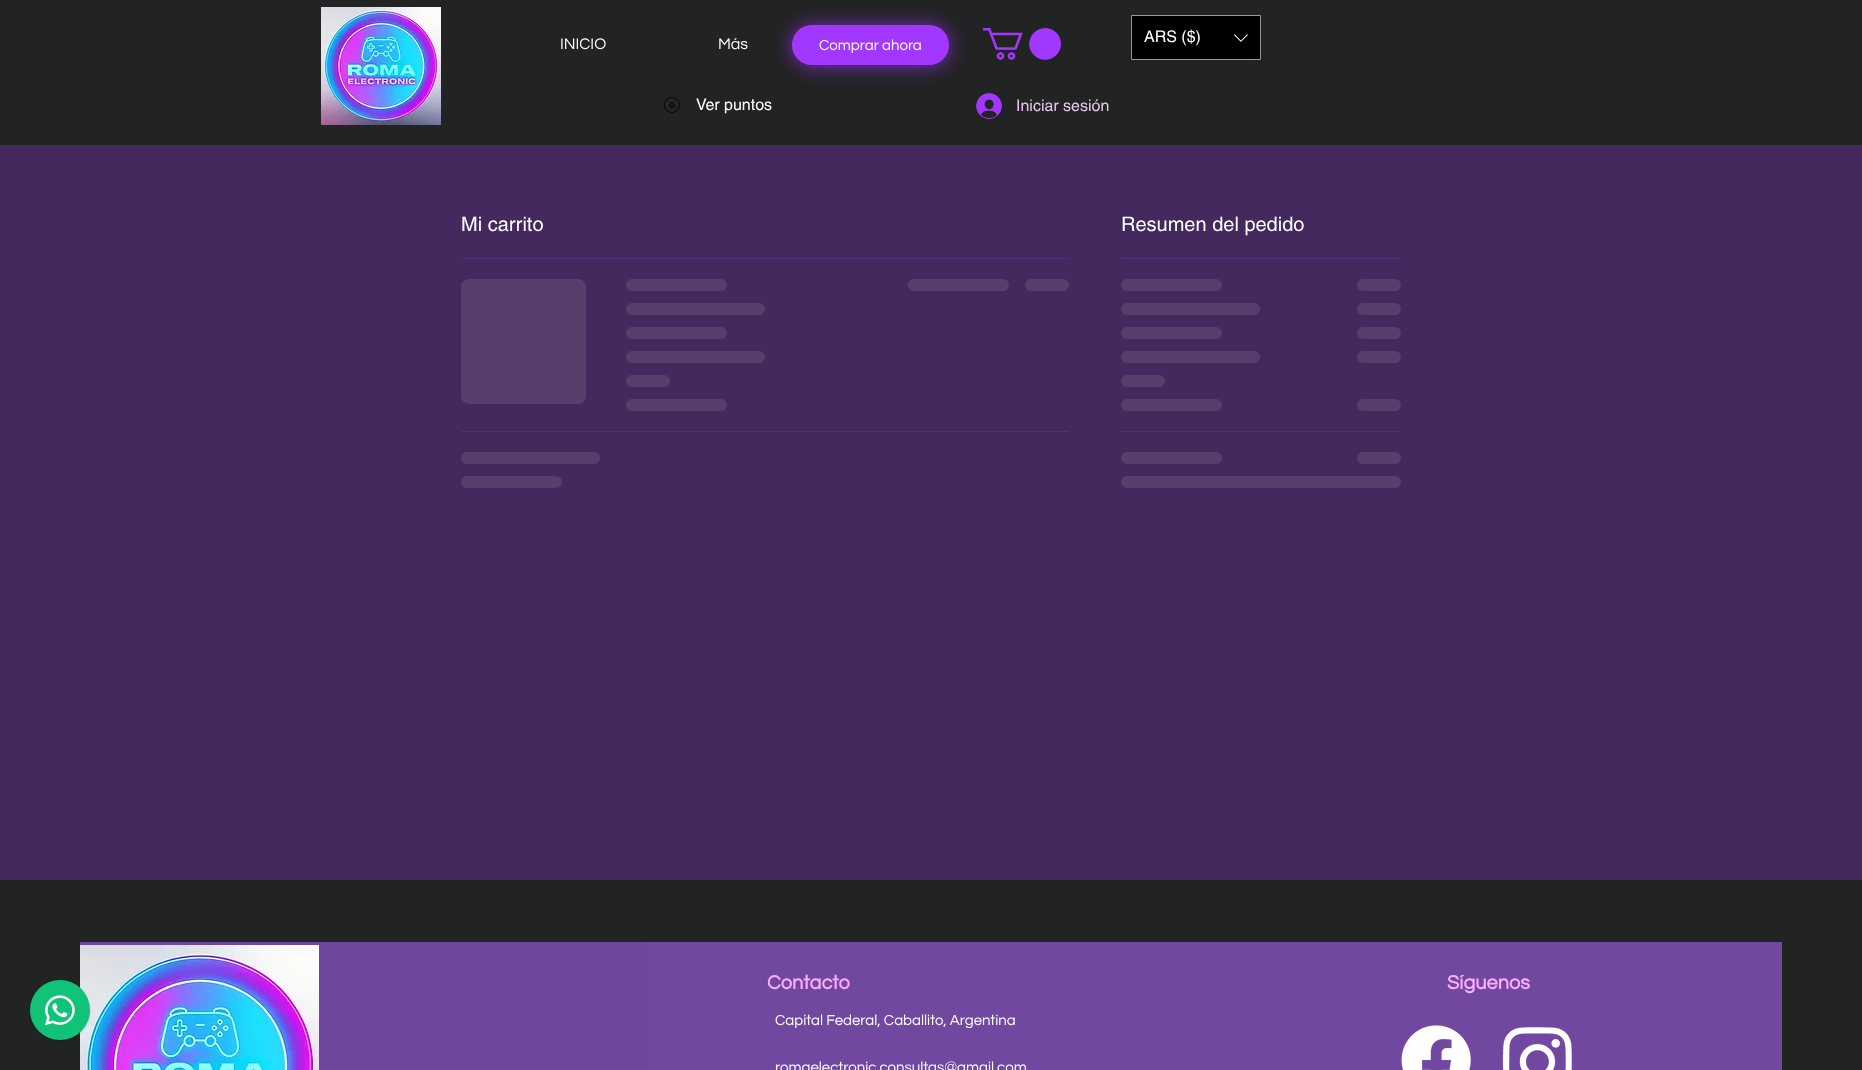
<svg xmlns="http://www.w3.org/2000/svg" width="1862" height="1070">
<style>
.a{font:16px Questrial;fill:#fff}
.b{font:15px Questrial;fill:#fff}
.c{font:16px helvetica;fill:#fff}
.d{font:16px helvetica;fill:#e6c7eb}
.e{font:20px helvetica;fill:#fff}
.f{font:bold 20px Questrial;fill:#feacff}
</style>
<defs>
<linearGradient id="g1" gradientUnits="userSpaceOnUse" x1="461" y1="342" x2="961" y2="342"><stop offset="0.25" stop-color="#563e6d"/><stop offset="0.37" stop-color="#69547d"/><stop offset="0.63" stop-color="#563e6d"/></linearGradient>
<linearGradient id="g2" gradientUnits="userSpaceOnUse" x1="626" y1="285" x2="1030" y2="285"><stop offset="0.25" stop-color="#563e6d"/><stop offset="0.37" stop-color="#69547d"/><stop offset="0.63" stop-color="#563e6d"/></linearGradient>
<linearGradient id="g3" gradientUnits="userSpaceOnUse" x1="626" y1="309" x2="1182" y2="309"><stop offset="0.25" stop-color="#563e6d"/><stop offset="0.37" stop-color="#69547d"/><stop offset="0.63" stop-color="#563e6d"/></linearGradient>
<linearGradient id="g4" gradientUnits="userSpaceOnUse" x1="626" y1="333" x2="1030" y2="333"><stop offset="0.25" stop-color="#563e6d"/><stop offset="0.37" stop-color="#69547d"/><stop offset="0.63" stop-color="#563e6d"/></linearGradient>
<linearGradient id="g5" gradientUnits="userSpaceOnUse" x1="626" y1="357" x2="1182" y2="357"><stop offset="0.25" stop-color="#563e6d"/><stop offset="0.37" stop-color="#69547d"/><stop offset="0.63" stop-color="#563e6d"/></linearGradient>
<linearGradient id="g6" gradientUnits="userSpaceOnUse" x1="626" y1="381" x2="802" y2="381"><stop offset="0.25" stop-color="#563e6d"/><stop offset="0.37" stop-color="#69547d"/><stop offset="0.63" stop-color="#563e6d"/></linearGradient>
<linearGradient id="g7" gradientUnits="userSpaceOnUse" x1="626" y1="405" x2="1030" y2="405"><stop offset="0.25" stop-color="#563e6d"/><stop offset="0.37" stop-color="#69547d"/><stop offset="0.63" stop-color="#563e6d"/></linearGradient>
<linearGradient id="g8" gradientUnits="userSpaceOnUse" x1="908" y1="285" x2="1312" y2="285"><stop offset="0.25" stop-color="#563e6d"/><stop offset="0.37" stop-color="#69547d"/><stop offset="0.63" stop-color="#563e6d"/></linearGradient>
<linearGradient id="g9" gradientUnits="userSpaceOnUse" x1="1025" y1="285" x2="1201" y2="285"><stop offset="0.25" stop-color="#563e6d"/><stop offset="0.37" stop-color="#69547d"/><stop offset="0.63" stop-color="#563e6d"/></linearGradient>
<linearGradient id="g10" gradientUnits="userSpaceOnUse" x1="461" y1="458" x2="1017" y2="458"><stop offset="0.25" stop-color="#563e6d"/><stop offset="0.37" stop-color="#69547d"/><stop offset="0.63" stop-color="#563e6d"/></linearGradient>
<linearGradient id="g11" gradientUnits="userSpaceOnUse" x1="461" y1="482" x2="865" y2="482"><stop offset="0.25" stop-color="#563e6d"/><stop offset="0.37" stop-color="#69547d"/><stop offset="0.63" stop-color="#563e6d"/></linearGradient>
<linearGradient id="g12" gradientUnits="userSpaceOnUse" x1="1121" y1="285" x2="1525" y2="285"><stop offset="0.25" stop-color="#563e6d"/><stop offset="0.37" stop-color="#69547d"/><stop offset="0.63" stop-color="#563e6d"/></linearGradient>
<linearGradient id="g13" gradientUnits="userSpaceOnUse" x1="1357" y1="285" x2="1533" y2="285"><stop offset="0.25" stop-color="#563e6d"/><stop offset="0.37" stop-color="#69547d"/><stop offset="0.63" stop-color="#563e6d"/></linearGradient>
<linearGradient id="g14" gradientUnits="userSpaceOnUse" x1="1121" y1="309" x2="1677" y2="309"><stop offset="0.25" stop-color="#563e6d"/><stop offset="0.37" stop-color="#69547d"/><stop offset="0.63" stop-color="#563e6d"/></linearGradient>
<linearGradient id="g15" gradientUnits="userSpaceOnUse" x1="1357" y1="309" x2="1533" y2="309"><stop offset="0.25" stop-color="#563e6d"/><stop offset="0.37" stop-color="#69547d"/><stop offset="0.63" stop-color="#563e6d"/></linearGradient>
<linearGradient id="g16" gradientUnits="userSpaceOnUse" x1="1121" y1="333" x2="1525" y2="333"><stop offset="0.25" stop-color="#563e6d"/><stop offset="0.37" stop-color="#69547d"/><stop offset="0.63" stop-color="#563e6d"/></linearGradient>
<linearGradient id="g17" gradientUnits="userSpaceOnUse" x1="1357" y1="333" x2="1533" y2="333"><stop offset="0.25" stop-color="#563e6d"/><stop offset="0.37" stop-color="#69547d"/><stop offset="0.63" stop-color="#563e6d"/></linearGradient>
<linearGradient id="g18" gradientUnits="userSpaceOnUse" x1="1121" y1="357" x2="1677" y2="357"><stop offset="0.25" stop-color="#563e6d"/><stop offset="0.37" stop-color="#69547d"/><stop offset="0.63" stop-color="#563e6d"/></linearGradient>
<linearGradient id="g19" gradientUnits="userSpaceOnUse" x1="1357" y1="357" x2="1533" y2="357"><stop offset="0.25" stop-color="#563e6d"/><stop offset="0.37" stop-color="#69547d"/><stop offset="0.63" stop-color="#563e6d"/></linearGradient>
<linearGradient id="g20" gradientUnits="userSpaceOnUse" x1="1121" y1="381" x2="1297" y2="381"><stop offset="0.25" stop-color="#563e6d"/><stop offset="0.37" stop-color="#69547d"/><stop offset="0.63" stop-color="#563e6d"/></linearGradient>
<linearGradient id="g21" gradientUnits="userSpaceOnUse" x1="1121" y1="405" x2="1525" y2="405"><stop offset="0.25" stop-color="#563e6d"/><stop offset="0.37" stop-color="#69547d"/><stop offset="0.63" stop-color="#563e6d"/></linearGradient>
<linearGradient id="g22" gradientUnits="userSpaceOnUse" x1="1357" y1="405" x2="1533" y2="405"><stop offset="0.25" stop-color="#563e6d"/><stop offset="0.37" stop-color="#69547d"/><stop offset="0.63" stop-color="#563e6d"/></linearGradient>
<linearGradient id="g23" gradientUnits="userSpaceOnUse" x1="1121" y1="458" x2="1525" y2="458"><stop offset="0.25" stop-color="#563e6d"/><stop offset="0.37" stop-color="#69547d"/><stop offset="0.63" stop-color="#563e6d"/></linearGradient>
<linearGradient id="g24" gradientUnits="userSpaceOnUse" x1="1357" y1="458" x2="1533" y2="458"><stop offset="0.25" stop-color="#563e6d"/><stop offset="0.37" stop-color="#69547d"/><stop offset="0.63" stop-color="#563e6d"/></linearGradient>
<linearGradient id="g25" gradientUnits="userSpaceOnUse" x1="1121" y1="482" x2="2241" y2="482"><stop offset="0.25" stop-color="#563e6d"/><stop offset="0.37" stop-color="#69547d"/><stop offset="0.63" stop-color="#563e6d"/></linearGradient>
</defs>
<rect width="100%" height="100%" fill="#222323"/>
<path fill="#6f469e" d="M80 942h566v128H80z"/>
<image href="7.png" x="80" y="945" width="239" height="125"/>
<rect fill="#00000026" filter="blur(1px)" x="30" y="981" width="60" height="60" rx="30"/>
<circle fill="#10c379" cx="60" cy="1010" r="30"/>
<image href="1.png" x="45" y="995" width="30" height="31"/>
<image href="2.png" x="321" y="7" width="120" height="118"/>
<rect fill="#7d2bc4" filter="blur(10px)" x="792" y="26" width="157" height="40" rx="20"/>
<rect fill="#a238ff" x="792" y="25" width="157" height="40" rx="20"/>
<image href="3.png" x="983" y="28" width="78" height="32"/>
<path fill="#000" stroke="#999" d="M1131.5 15.5h129v44H1131.5z"/>
<image href="4.png" x="1233" y="34" width="15" height="8"/>
<image href="5.png" x="664" y="97" width="16" height="16"/>
<image href="6.png" x="976" y="93" width="26" height="26"/>
<path fill="#43295d" d="M0 145h1862v735H0z"/>
<path fill="#562c7d" d="M461 258h608v1H461z"/>
<rect fill="url(#g1)" x="461" y="279" width="125" height="125" rx="8"/>
<rect fill="url(#g2)" x="626" y="279" width="101" height="12" rx="6"/>
<rect fill="url(#g3)" x="626" y="303" width="139" height="12" rx="6"/>
<rect fill="url(#g4)" x="626" y="327" width="101" height="12" rx="6"/>
<rect fill="url(#g5)" x="626" y="351" width="139" height="12" rx="6"/>
<rect fill="url(#g6)" x="626" y="375" width="44" height="12" rx="6"/>
<rect fill="url(#g7)" x="626" y="399" width="101" height="12" rx="6"/>
<rect fill="url(#g8)" x="908" y="279" width="101" height="12" rx="6"/>
<rect fill="url(#g9)" x="1025" y="279" width="44" height="12" rx="6"/>
<path fill="#562c7d" d="M461 431h608v1H461z"/>
<rect fill="url(#g10)" x="461" y="452" width="139" height="12" rx="6"/>
<rect fill="url(#g11)" x="461" y="476" width="101" height="12" rx="6"/>
<path fill="#562c7d" d="M1121 258h280v1H1121z"/>
<rect fill="url(#g12)" x="1121" y="279" width="101" height="12" rx="6"/>
<rect fill="url(#g13)" x="1357" y="279" width="44" height="12" rx="6"/>
<rect fill="url(#g14)" x="1121" y="303" width="139" height="12" rx="6"/>
<rect fill="url(#g15)" x="1357" y="303" width="44" height="12" rx="6"/>
<rect fill="url(#g16)" x="1121" y="327" width="101" height="12" rx="6"/>
<rect fill="url(#g17)" x="1357" y="327" width="44" height="12" rx="6"/>
<rect fill="url(#g18)" x="1121" y="351" width="139" height="12" rx="6"/>
<rect fill="url(#g19)" x="1357" y="351" width="44" height="12" rx="6"/>
<rect fill="url(#g20)" x="1121" y="375" width="44" height="12" rx="6"/>
<rect fill="url(#g21)" x="1121" y="399" width="101" height="12" rx="6"/>
<rect fill="url(#g22)" x="1357" y="399" width="44" height="12" rx="6"/>
<path fill="#562c7d" d="M1121 431h280v1H1121z"/>
<rect fill="url(#g23)" x="1121" y="452" width="101" height="12" rx="6"/>
<rect fill="url(#g24)" x="1357" y="452" width="44" height="12" rx="6"/>
<rect fill="url(#g25)" x="1121" y="476" width="280" height="12" rx="6"/>
<path fill="#71489f" d="M646 942h1136v128H646z"/>
<image href="8.png" x="1401" y="1025" width="70" height="45"/>
<image href="9.png" x="1502" y="1027" width="70" height="43"/>
<text class="a" x="560" y="49">INICIO</text>
<text class="a" x="718" y="49">Más</text>
<text class="b" x="819" y="50">Comprar ahora</text>
<text class="c" x="1144" y="42">ARS ($)</text>
<text class="c" x="696" y="110">Ver puntos</text>
<text class="d" x="1016" y="111">Iniciar sesión</text>
<text class="e" x="461" y="231">Mi carrito</text>
<text class="e" x="1121" y="231">Resumen del pedido</text>
<text class="f" x="767" y="989">Contacto</text>
<text class="b" x="775" y="1025">Capital Federal, Caballito, Argentina</text>
<text class="b" x="775" y="1072">romaelectronic.consultas@gmail.com</text>
<text class="f" x="1447" y="989">Síguenos</text>
</svg>
